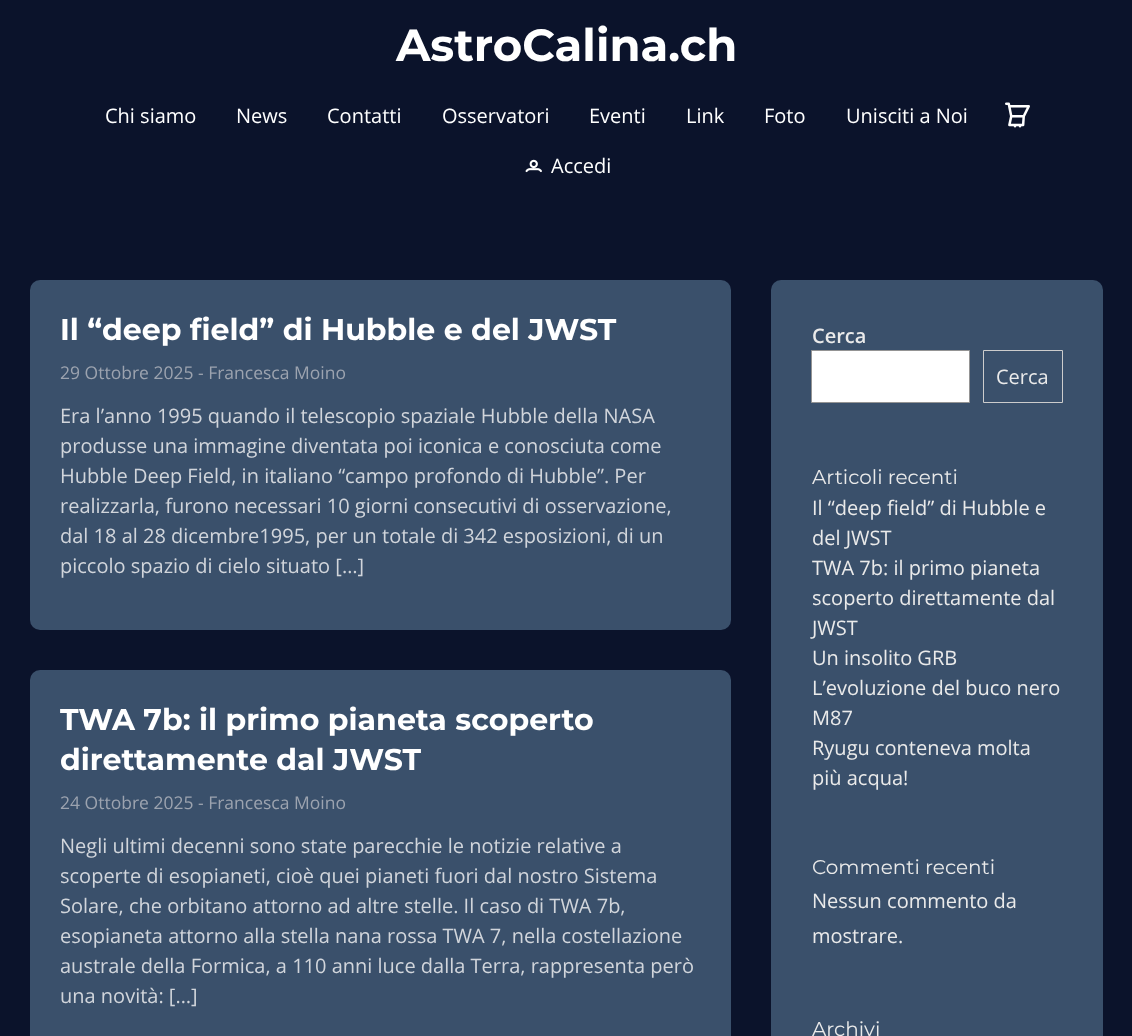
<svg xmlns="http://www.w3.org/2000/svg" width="1132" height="1036">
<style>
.a{font:bold 45px Montserrat;fill:#fff}
.b{font:20px Open Sans;fill:#fff}
.c{font:bold 30px Montserrat;fill:#fff}
.d{font:17.5px Open Sans;fill:#9ca3af}
.e{font:20px Open Sans;fill:#d1d5db}
.f{font:600 20px Open Sans;fill:#eaeaea}
.g{font:20px Open Sans;fill:#eaeaea}
.h{font:20px Montserrat;fill:#eaeaea}
</style>
<rect width="100%" height="100%" fill="#0b132b"/>
<image href="1.png" x="1005" y="102" width="25" height="26"/>
<image href="2.png" x="525" y="159" width="17" height="14"/>
<rect fill="#3a506b" x="30" y="280" width="701" height="350" rx="10"/>
<rect fill="#3a506b" x="30" y="670" width="701" height="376" rx="10"/>
<rect fill="#3a506b" x="771" y="280" width="332" height="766" rx="10"/>
<path fill="#fff" stroke="#949494" d="M811.5 350.5h158v52H811.5z"/>
<path fill="none" stroke="#ccc" d="M983.5 350.5h79v52H983.5z"/>
<text class="a" x="396" y="61">AstroCalina.ch</text>
<text class="b" x="105" y="123">Chi siamo</text>
<text class="b" x="236" y="123">News</text>
<text class="b" x="327" y="123">Contatti</text>
<text class="b" x="442" y="123">Osservatori</text>
<text class="b" x="589" y="123">Eventi</text>
<text class="b" x="686" y="123">Link</text>
<text class="b" x="764" y="123">Foto</text>
<text class="b" x="846" y="123">Unisciti a Noi</text>
<text class="b" x="551" y="173">Accedi</text>
<text class="c" x="60" y="340">Il “deep field” di Hubble e del JWST</text>
<text class="d" x="60" y="379">29 Ottobre 2025 - Francesca Moino</text>
<text class="e" x="60" y="423">Era l’anno 1995 quando il telescopio spaziale Hubble della NASA</text>
<text class="e" x="60" y="453">produsse una immagine diventata poi iconica e conosciuta come</text>
<text class="e" x="60" y="483">Hubble Deep Field, in italiano “campo profondo di Hubble”. Per</text>
<text class="e" x="60" y="513">realizzarla, furono necessari 10 giorni consecutivi di osservazione,</text>
<text class="e" x="60" y="543">dal 18 al 28 dicembre1995, per un totale di 342 esposizioni, di un</text>
<text class="e" x="60" y="573">piccolo spazio di cielo situato […]</text>
<text class="c" x="60" y="730">TWA 7b: il primo pianeta scoperto</text>
<text class="c" x="60" y="770">direttamente dal JWST</text>
<text class="d" x="60" y="809">24 Ottobre 2025 - Francesca Moino</text>
<text class="e" x="60" y="853">Negli ultimi decenni sono state parecchie le notizie relative a</text>
<text class="e" x="60" y="883">scoperte di esopianeti, cioè quei pianeti fuori dal nostro Sistema</text>
<text class="e" x="60" y="913">Solare, che orbitano attorno ad altre stelle. Il caso di TWA 7b,</text>
<text class="e" x="60" y="943">esopianeta attorno alla stella nana rossa TWA 7, nella costellazione</text>
<text class="e" x="60" y="973">australe della Formica, a 110 anni luce dalla Terra, rappresenta però</text>
<text class="e" x="60" y="1003">una novità: […]</text>
<text class="f" x="812" y="343">Cerca</text>
<text class="g" x="996" y="384">Cerca</text>
<text class="h" x="812" y="484">Articoli recenti</text>
<text class="g" x="812" y="515">Il “deep field” di Hubble e</text>
<text class="g" x="812" y="545">del JWST</text>
<text class="g" x="812" y="575">TWA 7b: il primo pianeta</text>
<text class="g" x="812" y="605">scoperto direttamente dal</text>
<text class="g" x="812" y="635">JWST</text>
<text class="g" x="812" y="665">Un insolito GRB</text>
<text class="g" x="812" y="695">L’evoluzione del buco nero</text>
<text class="g" x="812" y="725">M87</text>
<text class="g" x="812" y="755">Ryugu conteneva molta</text>
<text class="g" x="812" y="785">più acqua!</text>
<text class="h" x="812" y="874">Commenti recenti</text>
<text class="g" x="812" y="908">Nessun commento da</text>
<text class="g" x="812" y="943">mostrare.</text>
<text class="h" x="812" y="1036">Archivi</text>
</svg>
